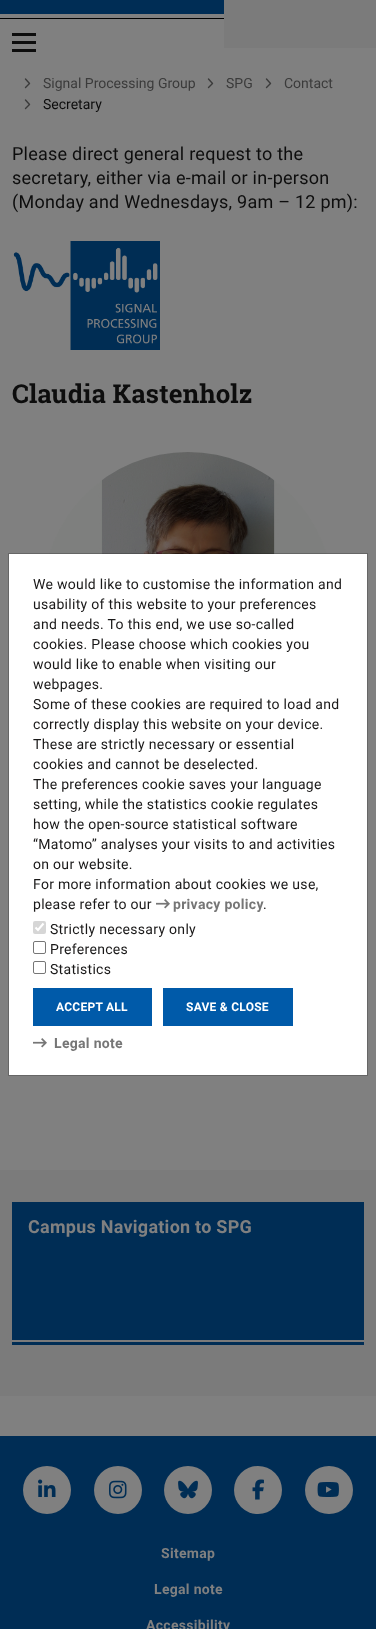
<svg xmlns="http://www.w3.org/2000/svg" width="376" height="1629">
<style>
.a{font:14px Roboto;fill:#3b3b3b}
.b{font:14px Roboto;fill:#0d0d0d}
.c{font:18px Roboto;letter-spacing:0.25px;fill:#0d0d0d}
.d{font:bold 26px Roboto Slab;letter-spacing:0.1px;fill:#0d0d0d}
.e{font:bold 18px Roboto;letter-spacing:0.25px;fill:#808080}
.f{font:bold 14px Roboto;letter-spacing:0.3px;fill:#808080}
.g{font:14px Roboto;letter-spacing:0.3px;fill:#1a1919}
.h{font:bold 14px Roboto;letter-spacing:0.3px;fill:#767676}
.i{font:bold 12px Roboto;letter-spacing:0.25px;fill:#fff}
</style>
<rect width="100%" height="100%" fill="#808080"/>
<path fill="#002d55" d="M0 0h224v14H0z"/>
<path fill="#000" d="M0 18h224v1H0z"/>
<path fill="#7b7b7b" d="M224 0h152v48H224z"/>
<path fill="#0d0d0d" d="M12 41h24v3H12z"/>
<path fill="#0d0d0d" d="M12 33h24v3H12z"/>
<path fill="#0d0d0d" d="M12 49h24v3H12z"/>
<path fill="none" stroke="#3b3b3b" stroke-width="1.4" stroke-linecap="round" stroke-linejoin="round" d="M25.5 87.5l4-4l-4-4.5"/>
<path fill="none" stroke="#3b3b3b" stroke-width="1.4" stroke-linecap="round" stroke-linejoin="round" d="M208.5 87.5l4-4l-4-4.5"/>
<path fill="none" stroke="#3b3b3b" stroke-width="1.4" stroke-linecap="round" stroke-linejoin="round" d="M266.5 87.5l4-4l-4-4.5"/>
<path fill="none" stroke="#3b3b3b" stroke-width="1.4" stroke-linecap="round" stroke-linejoin="round" d="M25.5 108.5l4-4l-4-4.5"/>
<image href="1.png" x="13" y="241" width="147" height="109"/>
<image href="2.png" x="49" y="452" width="278" height="102"/>
<path fill="#7b7b7b" d="M0 1170h376v226H0z"/>
<path fill="#002d55" d="M12 1202h352v138H12z"/>
<path fill="#002d55" d="M12 1342h352v3H12z"/>
<path fill="#002d55" d="M0 1436h376v193H0z"/>
<circle fill="#808080" cx="47" cy="1490" r="24"/>
<image href="3.png" x="38" y="1479" width="18" height="18"/>
<circle fill="#808080" cx="118" cy="1490" r="24"/>
<image href="4.png" x="109" y="1480" width="18" height="19"/>
<circle fill="#808080" cx="188" cy="1490" r="24"/>
<image href="5.png" x="178" y="1480" width="20" height="19"/>
<circle fill="#808080" cx="258" cy="1490" r="24"/>
<image href="6.png" x="252" y="1479" width="12" height="21"/>
<circle fill="#808080" cx="329" cy="1490" r="24"/>
<image href="7.png" x="317" y="1482" width="22" height="15"/>
<path fill="#fff" d="M9 554h358v521H9z"/>
<path fill="none" stroke="#00000033" d="M8.5 553.5h359v522H8.5z"/>
<image href="8.png" x="156" y="899" width="14" height="10"/>
<rect fill="#d6d6d6" x="33" y="921" width="13" height="13" rx="2"/>
<path fill="none" stroke="#fff" stroke-width="2.1" d="M35.5 927.5l2.5 2.5l5.5-6.5"/>
<rect fill="none" stroke="#767676" x="33.5" y="941.5" width="12" height="12" rx="1.5"/>
<rect fill="none" stroke="#767676" x="33.5" y="961.5" width="12" height="12" rx="1.5"/>
<path fill="#005aa9" d="M33 988h119v38H33z"/>
<path fill="#005aa9" d="M163 988h130v38H163z"/>
<image href="8.png" x="33" y="1038" width="14" height="10"/>
<text class="a" x="43" y="88">Signal Processing Group</text>
<text class="a" x="226" y="88">SPG</text>
<text class="a" x="284" y="88">Contact</text>
<text class="b" x="43" y="109">Secretary</text>
<text class="c" x="12" y="160">Please direct general request to the</text>
<text class="c" x="12" y="184">secretary, either via e-mail or in-person</text>
<text class="c" x="12" y="208">(Monday and Wednesdays, 9am – 12 pm):</text>
<text class="d" x="12" y="403">Claudia Kastenholz</text>
<text class="e" x="28" y="1233">Campus Navigation to SPG</text>
<text class="f" x="161" y="1558">Sitemap</text>
<text class="f" x="154" y="1594">Legal note</text>
<text class="f" x="146" y="1630">Accessibility</text>
<text class="g" x="33" y="589">We would like to customise the information and</text>
<text class="g" x="33" y="609">usability of this website to your preferences</text>
<text class="g" x="33" y="629">and needs. To this end, we use so-called</text>
<text class="g" x="33" y="649">cookies. Please choose which cookies you</text>
<text class="g" x="33" y="669">would like to enable when visiting our</text>
<text class="g" x="33" y="689">webpages.</text>
<text class="g" x="33" y="709">Some of these cookies are required to load and</text>
<text class="g" x="33" y="729">correctly display this website on your device.</text>
<text class="g" x="33" y="749">These are strictly necessary or essential</text>
<text class="g" x="33" y="769">cookies and cannot be deselected.</text>
<text class="g" x="33" y="789">The preferences cookie saves your language</text>
<text class="g" x="33" y="809">setting, while the statistics cookie regulates</text>
<text class="g" x="33" y="829">how the open-source statistical software</text>
<text class="g" x="33" y="849">“Matomo” analyses your visits to and activities</text>
<text class="g" x="33" y="869">on our website.</text>
<text class="g" x="33" y="889">For more information about cookies we use,</text>
<text class="g" x="33" y="909">please refer to our</text>
<text class="h" x="173" y="909">privacy policy</text>
<text class="g" x="263" y="909">.</text>
<text class="g" x="50" y="934">Strictly necessary only</text>
<text class="g" x="50" y="954">Preferences</text>
<text class="g" x="50" y="974">Statistics</text>
<text class="i" x="56" y="1011">ACCEPT ALL</text>
<text class="i" x="186" y="1011">SAVE &amp; CLOSE</text>
<text class="h" x="54" y="1048">Legal note</text>
</svg>
